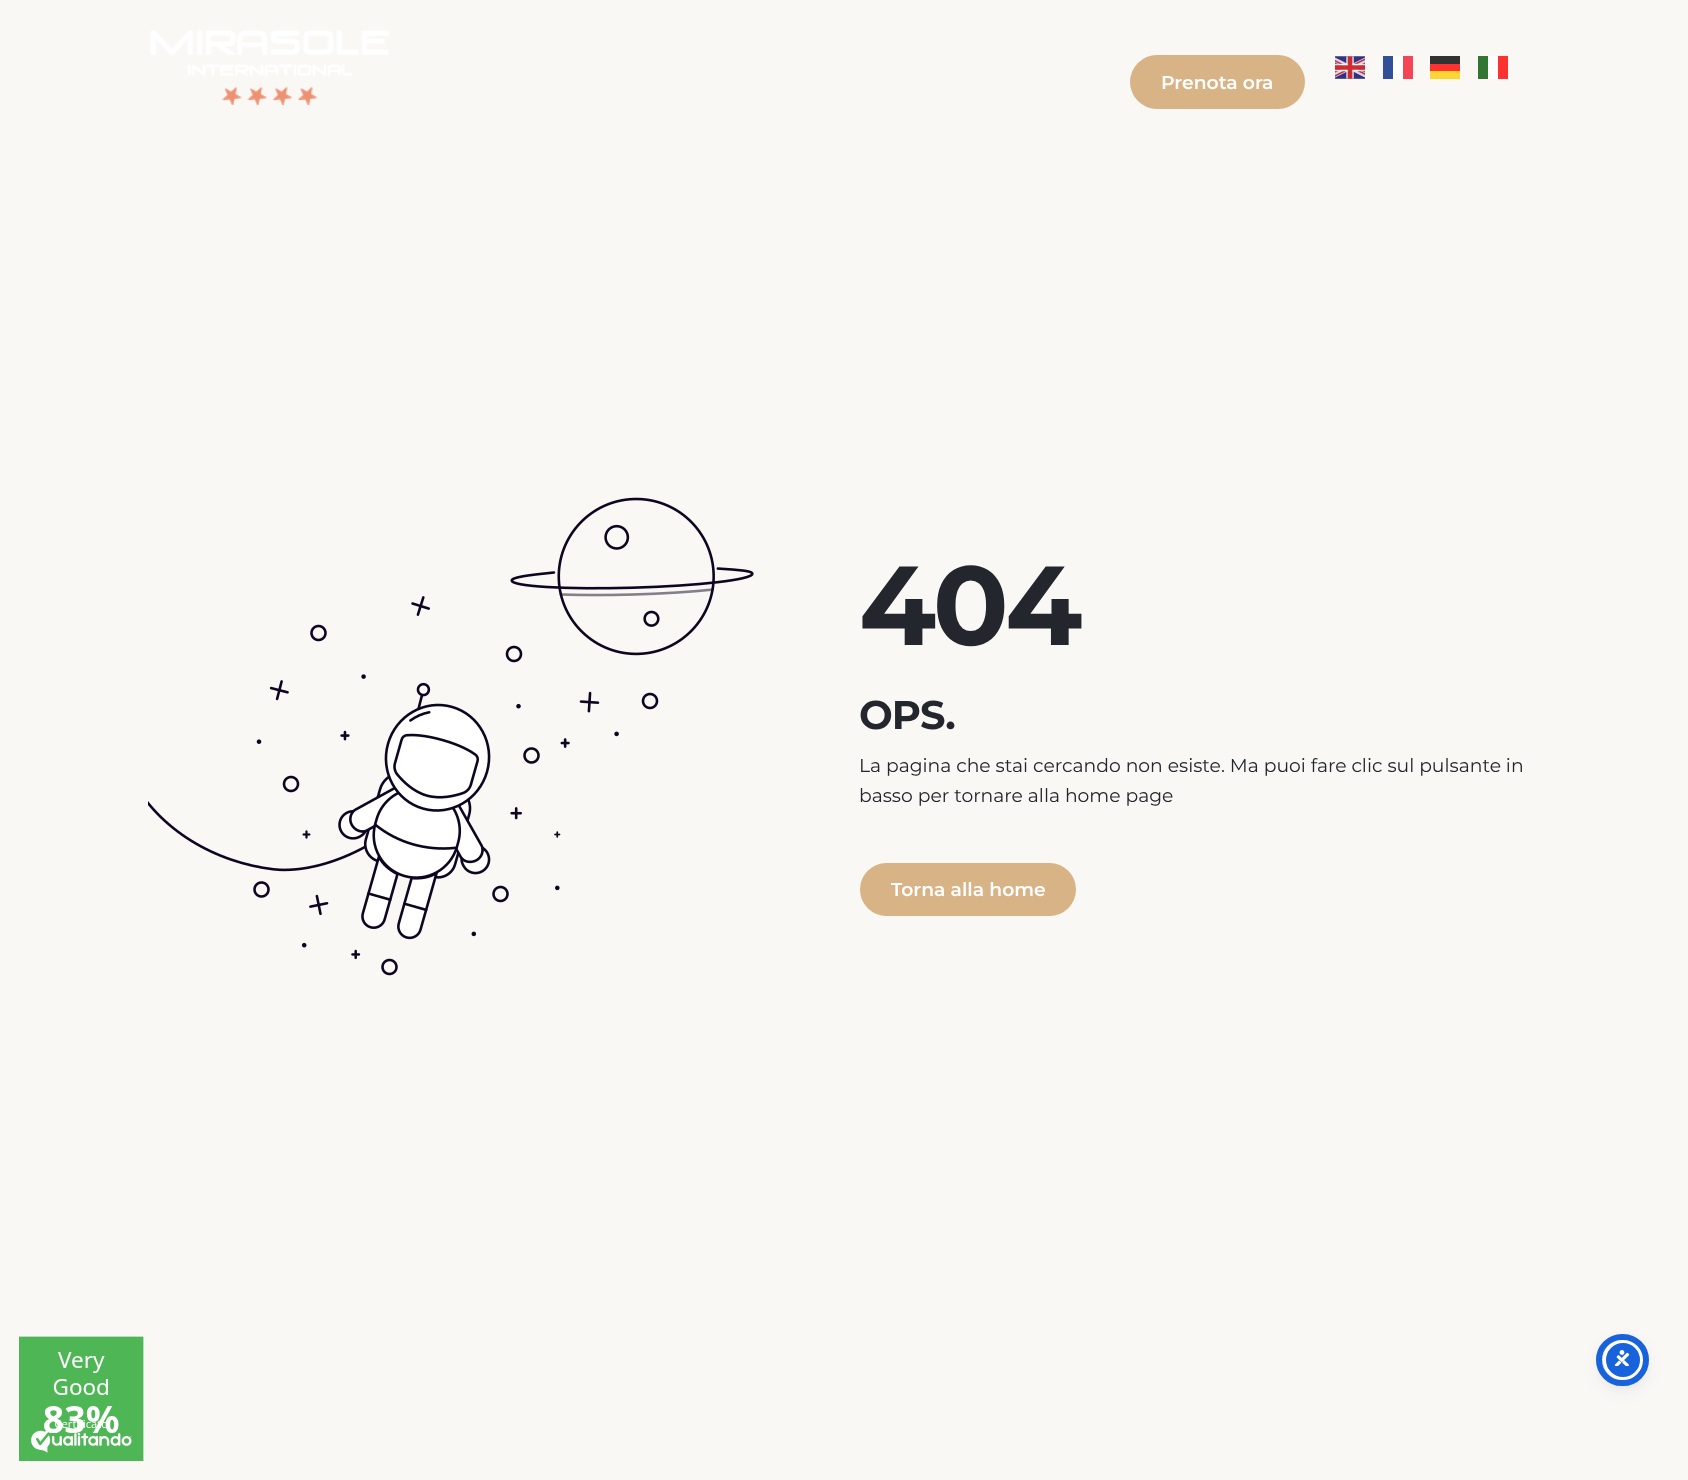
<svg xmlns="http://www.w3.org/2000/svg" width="1688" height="1480">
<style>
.a{font:600 18.75px Montserrat;fill:#fff}
.b{font:bold 112px Montserrat;letter-spacing:-3.5px;fill:#24262d}
.c{font:bold 40px Montserrat;letter-spacing:-1px;fill:#24262d}
.d{font:18.75px Montserrat;fill:#24262d}
</style>
<rect width="100%" height="100%" fill="#faf8f5"/>
<image href="1.png" x="150" y="30" width="239" height="75"/>
<image href="2.png" x="1335" y="56" width="30" height="23"/>
<path fill="#325097" d="M1383 56h10v23H1383z"/>
<path fill="#fefefd" d="M1393 56h10v23H1393z"/>
<path fill="#f44557" d="M1403 56h10v23H1403z"/>
<path fill="#323231" d="M1430 56h30v8H1430z"/>
<path fill="#327731" d="M1478 56h10v23H1478z"/>
<path fill="#fefefd" d="M1488 56h10v23H1488z"/>
<path fill="#fc3231" d="M1498 56h10v23H1498z"/>
<path fill="#fe3231" d="M1430 64h30v7H1430z"/>
<path fill="#fed531" d="M1430 71h30v8H1430z"/>
<rect fill="#d8b386" x="1130" y="55" width="175" height="54" rx="27"/>
<image href="3.png" x="148" y="497" width="606" height="479"/>
<rect fill="#d8b386" x="860" y="863" width="216" height="53" rx="26.5"/>
<image href="4.png" x="19" y="1336" width="125" height="125"/>
<rect fill="#5d649433" filter="blur(2.5px)" x="1603" y="1343" width="40" height="40" rx="20"/>
<rect fill="#252c6126" filter="blur(9.5px)" x="1603" y="1346" width="40" height="40" rx="20"/>
<circle fill="#1863dc" stroke="#fff" stroke-width="3" cx="1623" cy="1360" r="18.5"/>
<rect fill="none" stroke="#1863dc" stroke-width="6" x="1599" y="1337" width="47" height="46" rx="23"/>
<image href="5.png" x="1614" y="1350" width="16" height="16"/>
<text class="a" x="1161" y="89">Prenota ora</text>
<text class="b" x="859" y="645">404</text>
<text class="c" x="859" y="729">OPS.</text>
<text class="d" x="859" y="772">La pagina che stai cercando non esiste. Ma puoi fare clic sul pulsante in</text>
<text class="d" x="859" y="802">basso per tornare alla home page</text>
<text class="a" x="891" y="896">Torna alla home</text>
</svg>
